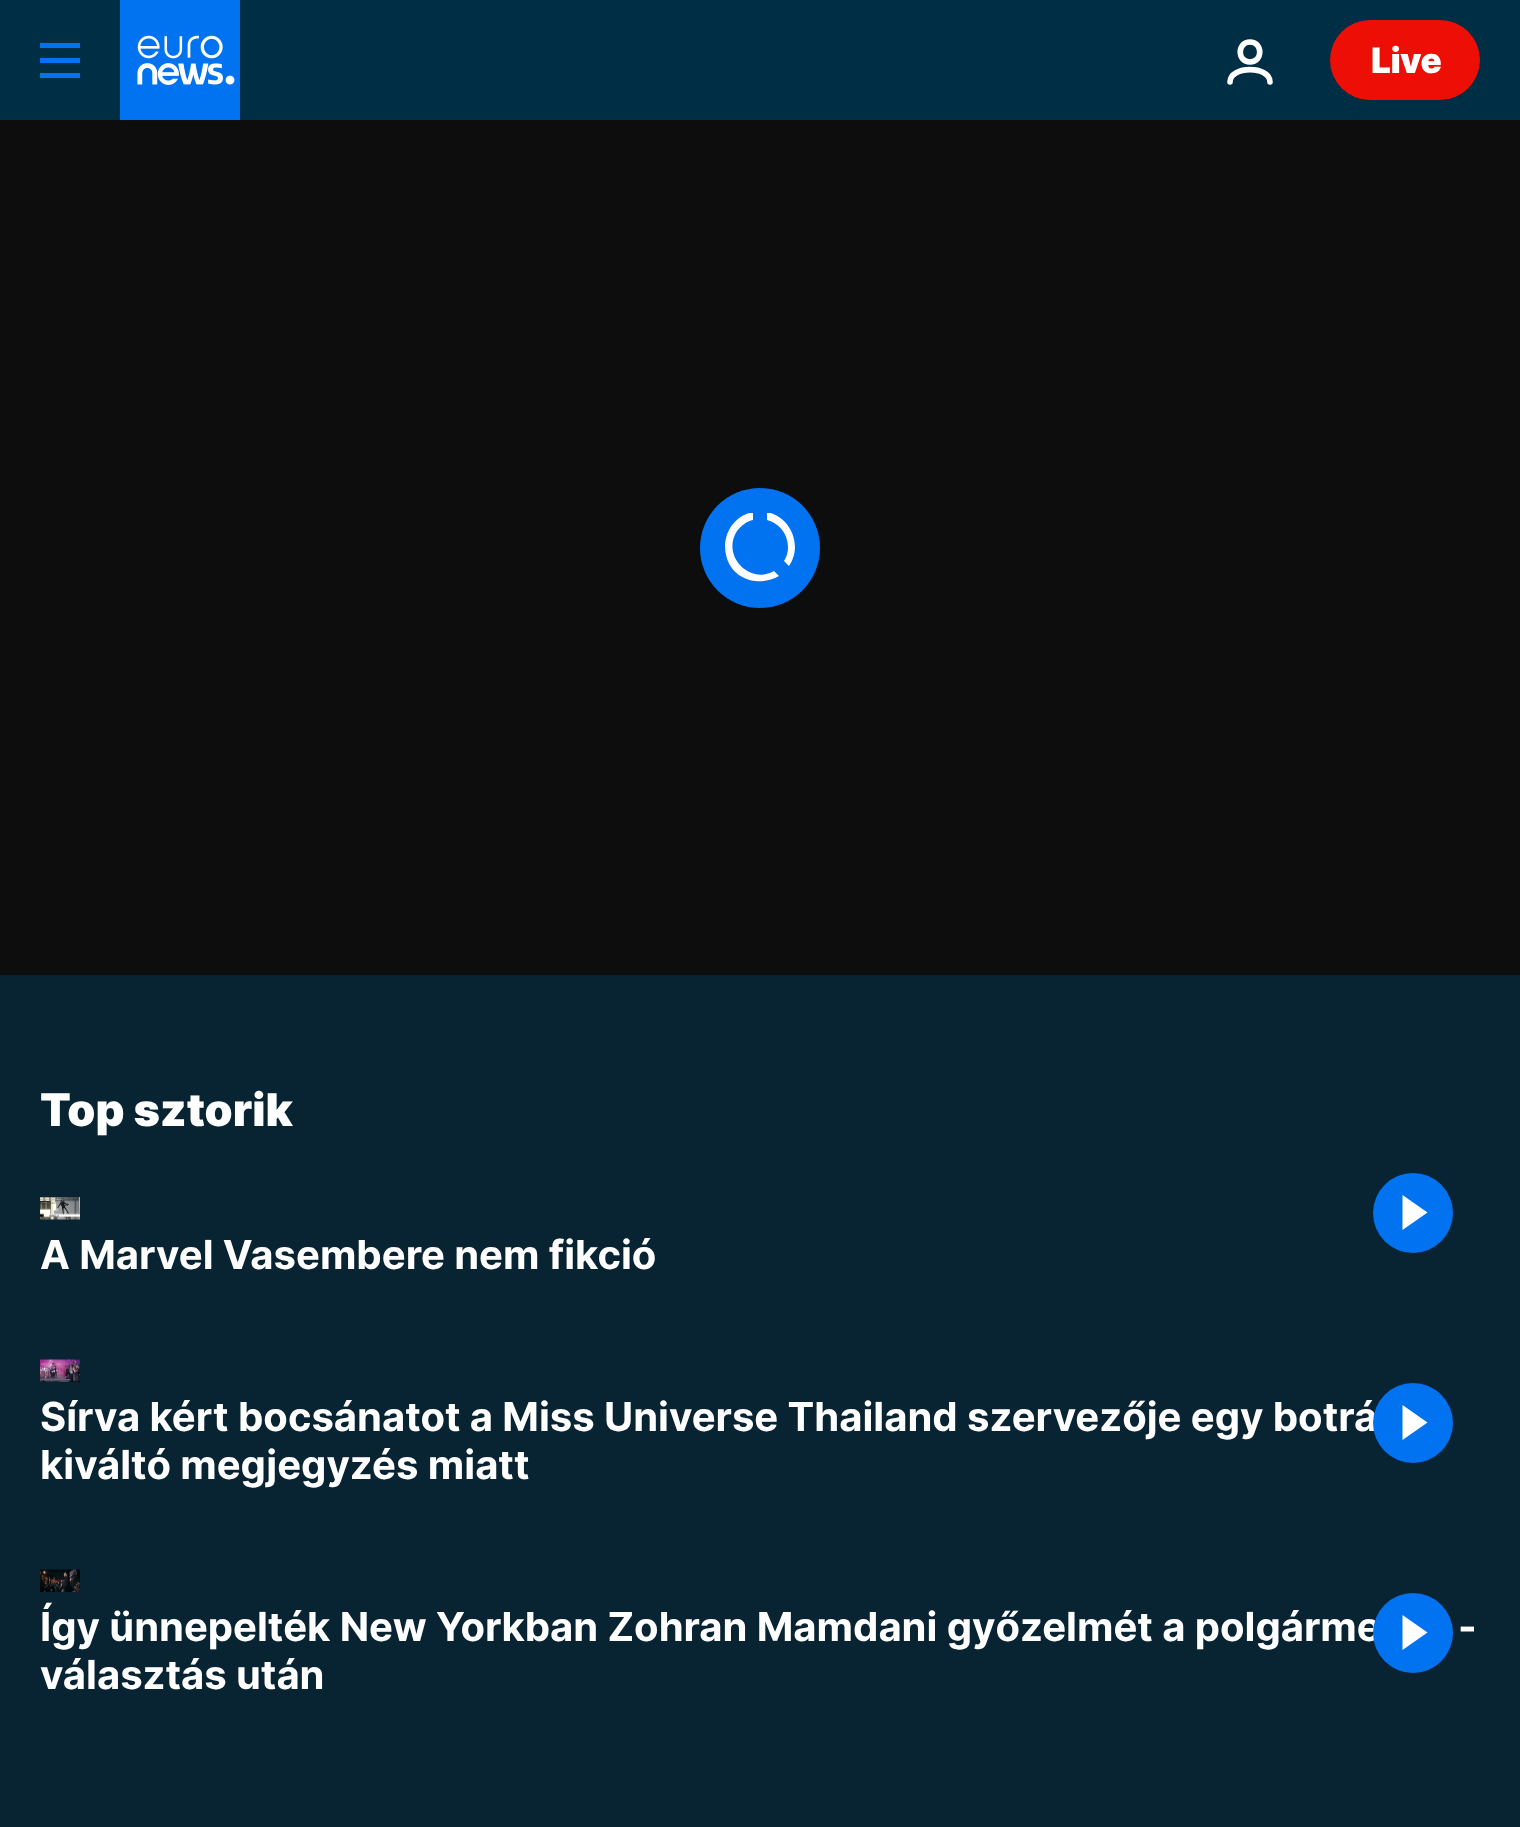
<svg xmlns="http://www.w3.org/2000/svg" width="1520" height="1827">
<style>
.a{font:900 35px Inter;letter-spacing:-0.5px;fill:#fff}
.b{font:900 45px Inter;fill:#fff}
.c{font:bold 40px Inter;fill:#fff}
</style>
<defs>
<clipPath id="clip1"><path d="M725 513h70v70H725z"/></clipPath>
</defs>
<rect width="100%" height="100%" fill="#082332"/>
<path fill="#002e44" d="M0 0h1520v120H0z"/>
<path fill="#0172f0" d="M40 43h40v5H40z"/>
<path fill="#0172f0" d="M40 58h40v5H40z"/>
<path fill="#0172f0" d="M40 73h40v5H40z"/>
<image href="1.png" x="120" y="0" width="120" height="120"/>
<path fill="none" stroke="#fff" stroke-width="5.6" stroke-linecap="round" stroke-linejoin="round" d="M1230 82c0-16.5 40-16.5 40 0m-20-20c13 0 13-20 0-20c-13 0-13 20 0 20z"/>
<rect fill="#ed0e05" x="1330" y="20" width="150" height="80" rx="40"/>
<path fill="#0d0d0d" d="M0 120h1520v855H0z"/>
<circle fill="#0172f0" cx="760" cy="548" r="60"/>
<g clip-path="url(#clip1)">
<path fill="#fff" d="M774 571c-24 14-53-15-37-40c4-5 10-10 16-11v-8c-38 8-37 64 2 69c8 1 17-1 24-5zm14-24c0 5-1 9-4 14l5 5c14-20 2-49-22-54v8c12 3 21 14 21 27z"/>
</g>
<image href="2.png" x="40" y="1197" width="40" height="23"/>
<circle fill="#0172f0" cx="1413" cy="1213" r="40"/>
<path fill="#fff" d="M1402.5 1230v-35l25 17.5z"/>
<image href="3.png" x="40" y="1359" width="40" height="23"/>
<image href="4.png" x="40" y="1569" width="40" height="23"/>
<text class="a" x="1371" y="73">Live</text>
<text class="b" x="40" y="1126">Top sztorik</text>
<text class="c" x="40" y="1269">A Marvel Vasembere nem fikció</text>
<text class="c" x="40" y="1431">Sírva kért bocsánatot a Miss Universe Thailand szervezője egy botrá</text>
<circle fill="#0172f0" cx="1413" cy="1423" r="40"/>
<path fill="#fff" d="M1402.5 1440v-35l25 17.5z"/>
<text class="c" x="40" y="1479">kiváltó megjegyzés miatt</text>
<text class="c" x="40" y="1641">Így ünnepelték New Yorkban Zohran Mamdani győzelmét a polgárme</text>
<circle fill="#0172f0" cx="1413" cy="1633" r="40"/>
<path fill="#fff" d="M1402.5 1650v-35l25 17.5z"/>
<text class="c" x="1458" y="1641">-</text>
<text class="c" x="40" y="1689">választás után</text>
</svg>
